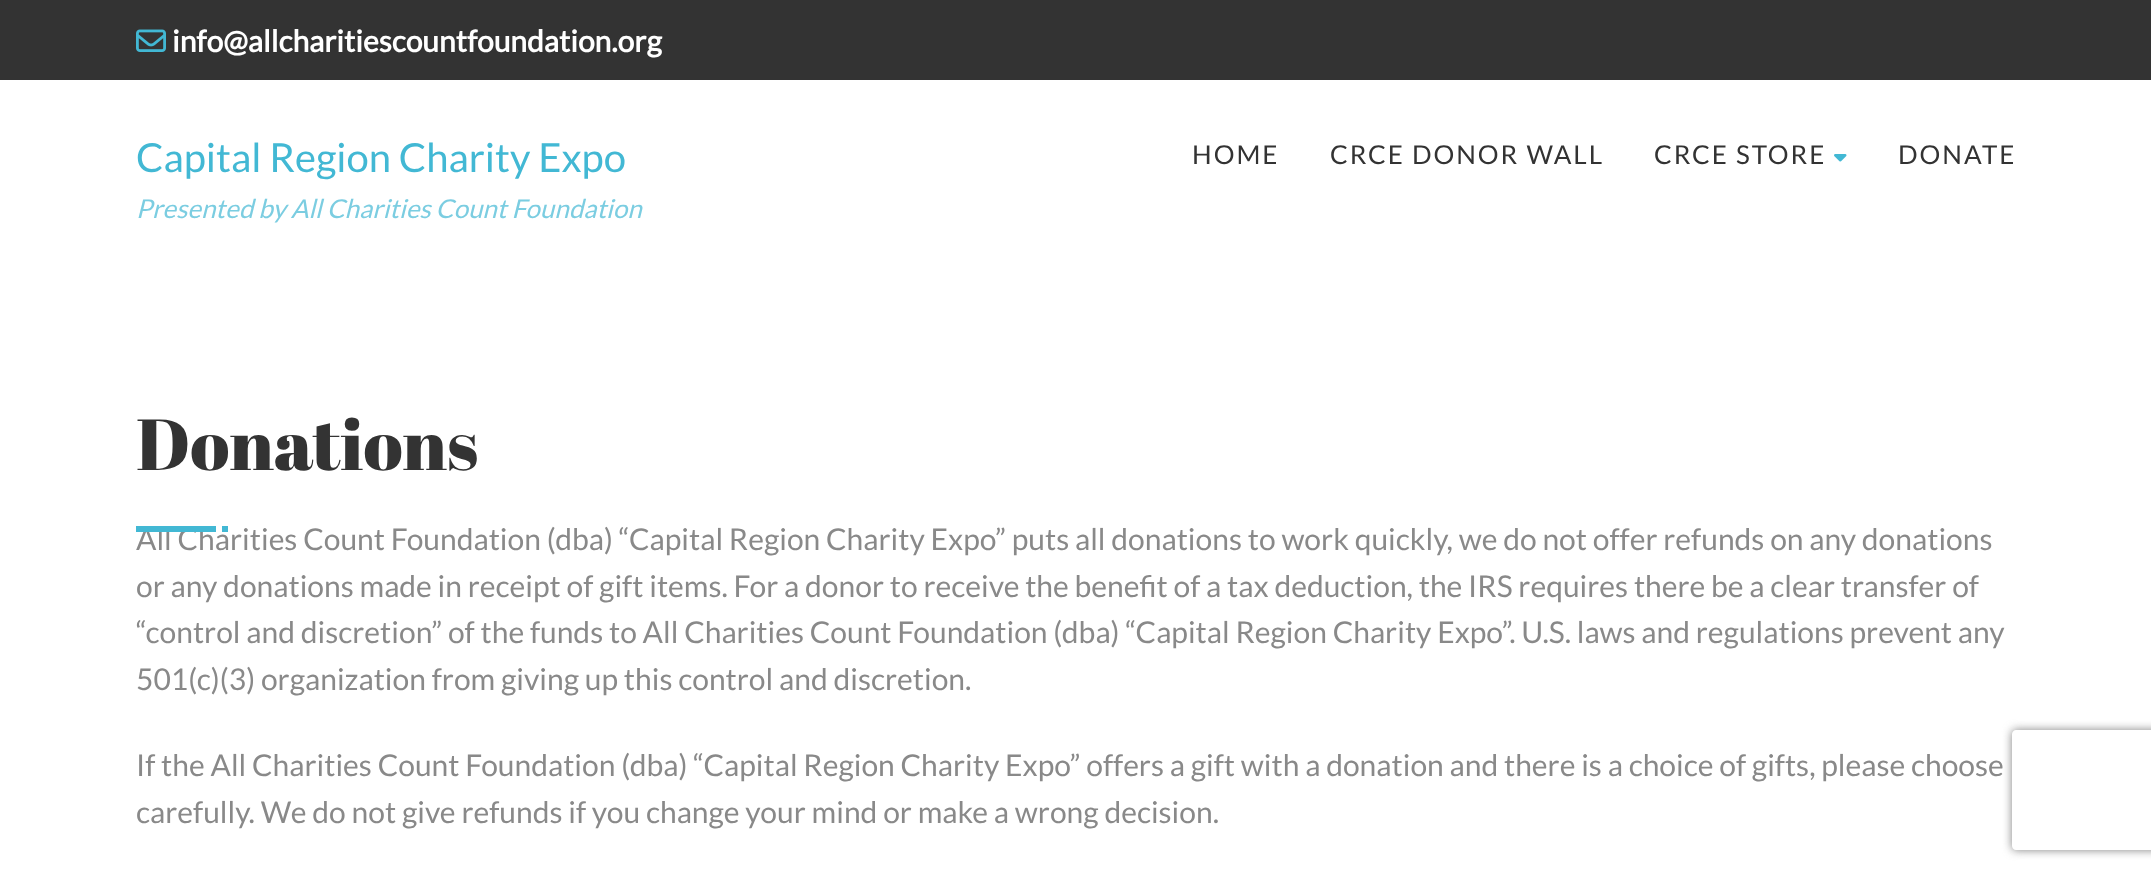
<svg xmlns="http://www.w3.org/2000/svg" width="2151" height="877">
<style>
.a{font:bold 30px Lato;fill:#fff}
.b{font:40px Lato;fill:#42b8d4}
.c{font:italic 26px Lato;fill:#7bcde1}
.d{font:26px Lato;letter-spacing:2px;fill:#333}
.e{font:72px Abril Fatface;fill:#333}
.f{font:30px Lato;fill:#898989}
</style>
<defs>
<clipPath id="clip1"><path d="M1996 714h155v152h-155zm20 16h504c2 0 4 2 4 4v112c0 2-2 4-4 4h-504c-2 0-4-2-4-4v-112c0-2 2-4 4-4z" clip-rule="evenodd"/></clipPath>
</defs>
<rect width="100%" height="100%" fill="#fff"/>
<path fill="#333" d="M0 0h2151v80H0z"/>
<image href="1.png" x="136" y="29" width="30" height="23"/>
<image href="2.png" x="1834" y="154" width="13" height="8"/>
<g clip-path="url(#clip1)">
<rect fill="#808080" filter="blur(5px)" x="2012" y="730" width="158" height="120" rx="4"/>
</g>
<text class="a" x="172" y="52">info@allcharitiescountfoundation.org</text>
<text class="b" x="136" y="172">Capital Region Charity Expo</text>
<text class="c" x="136" y="218">Presented by All Charities Count Foundation</text>
<text class="d" x="1192" y="164">HOME</text>
<text class="d" x="1330" y="164">CRCE DONOR WALL</text>
<text class="d" x="1654" y="164">CRCE STORE</text>
<text class="d" x="1898" y="164">DONATE</text>
<text class="e" x="136" y="470">Donations</text>
<text class="f" x="136" y="550">All Charities Count Foundation (dba) “Capital Region Charity Expo” puts all donations to work quickly, we do not offer refunds on any donations</text>
<path fill="#42b8d4" d="M222 526h6v6H222z"/>
<path fill="#42b8d4" d="M136 526h80v6H136z"/>
<text class="f" x="136" y="597">or any donations made in receipt of gift items. For a donor to receive the benefit of a tax deduction, the IRS requires there be a clear transfer of</text>
<text class="f" x="136" y="643">“control and discretion” of the funds to All Charities Count Foundation (dba) “Capital Region Charity Expo”. U.S. laws and regulations prevent any</text>
<text class="f" x="136" y="690">501(c)(3) organization from giving up this control and discretion.</text>
<text class="f" x="136" y="776">If the All Charities Count Foundation (dba) “Capital Region Charity Expo” offers a gift with a donation and there is a choice of gifts, please choose</text>
<text class="f" x="136" y="823">carefully. We do not give refunds if you change your mind or make a wrong decision.</text>
</svg>
